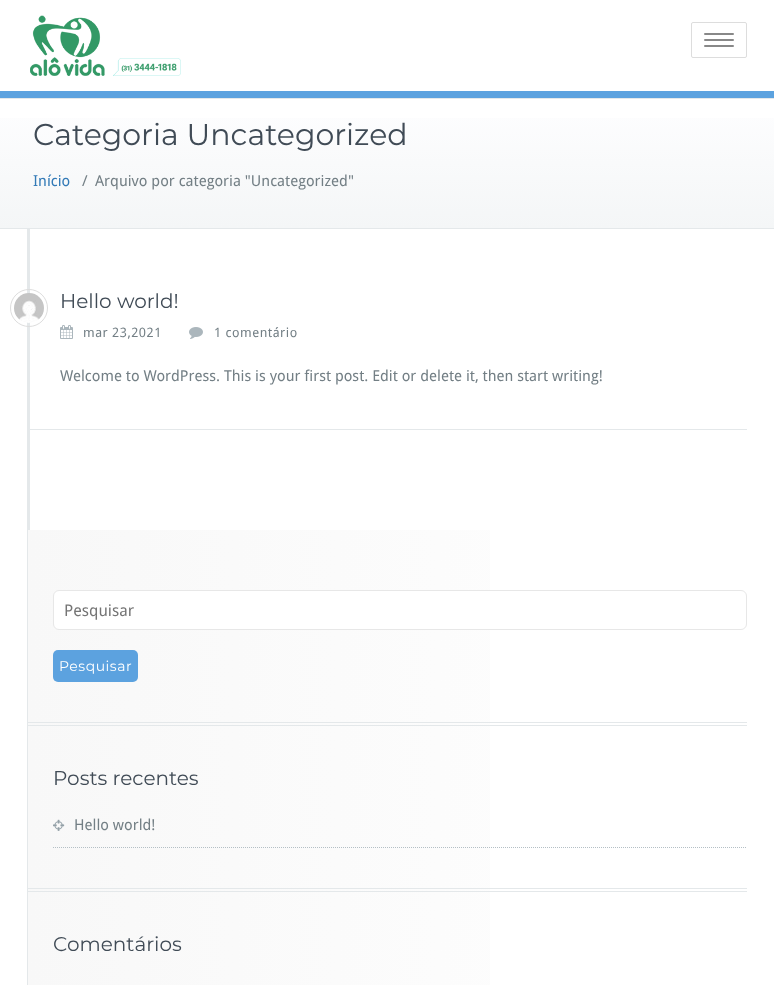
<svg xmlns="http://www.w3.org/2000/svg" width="774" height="985">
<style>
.a{font:30px Montserrat;fill:#404b56}
.b{font:15px Droid Sans;fill:#337ab7}
.c{font:15px Droid Sans;fill:#737f85}
.d{font:20px Montserrat;fill:#404b56}
.e{font:13px Droid Sans;letter-spacing:0.5px;fill:#737f85}
.f{font:16px Droid Sans;fill:#757575}
.g{font:14px Montserrat;letter-spacing:0.5px;fill:#fff}
</style>
<defs>
<linearGradient id="g1" gradientUnits="userSpaceOnUse" x1="387" y1="99" x2="387" y2="228"><stop offset="0" stop-color="#fefeff"/><stop offset="1" stop-color="#f4f6f7"/></linearGradient>
<linearGradient id="g2" gradientUnits="userSpaceOnUse" x1="28" y1="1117" x2="747" y2="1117"><stop offset="0" stop-color="#f8f8f8"/><stop offset="1" stop-color="#fff"/></linearGradient>
</defs>
<rect width="100%" height="100%" fill="#fff"/>
<path fill="#5ca2df" d="M0 91h774v7H0z"/>
<image href="1.png" x="30" y="15" width="151" height="61"/>
<rect fill="none" stroke="#ddd" x="691.5" y="22.5" width="55" height="35" rx="1.5"/>
<rect fill="#888" x="704" y="33" width="30" height="2" rx="1"/>
<rect fill="#888" x="704" y="39" width="30" height="2" rx="1"/>
<rect fill="#888" x="704" y="45" width="30" height="2" rx="1"/>
<path fill="url(#g1)" d="M0 118h774v110H0z"/>
<path fill="#e4e8ea" d="M0 98h774v1H0z"/>
<path fill="#e4e8ea" d="M0 228h774v1H0z"/>
<path fill="#e4e8ea" d="M27 229h3v301H27z"/>
<path fill="#e4e8ea" d="M30 429h717v1H30z"/>
<circle fill="none" stroke="#ddd" cx="29" cy="308" r="18.5"/>
<image href="2.png" x="14" y="293" width="30" height="30"/>
<image href="3.png" x="60" y="325" width="13" height="14"/>
<image href="4.png" x="189" y="327" width="14" height="12"/>
<path fill="url(#g2)" d="M28 530h462v455H28z"/>
<path fill="#e4e8ea" d="M27 530h1v455H27z"/>
<path fill="#e4e8ea" d="M28 722h719v1H28z"/>
<path fill="#e4e8ea" d="M28 725h719v1H28z"/>
<rect fill="#fff" stroke="#e7e7e7" x="53.5" y="590.5" width="693" height="39" rx="5.5"/>
<rect fill="#5ca2df" x="53" y="650" width="85" height="32" rx="5"/>
<path fill="#e4e8ea" d="M28 888h719v1H28z"/>
<path fill="#e4e8ea" d="M28 891h719v1H28z"/>
<path fill="none" stroke="#b4bfc5" stroke-dasharray="1 1" d="M53 847.5h694"/>
<image href="5.png" x="53" y="819" width="12" height="12"/>
<text class="a" x="33" y="145">Categoria Uncategorized</text>
<text class="b" x="33" y="186">Início</text>
<text class="c" x="82" y="186">/</text>
<text class="c" x="95" y="186">Arquivo por categoria "Uncategorized"</text>
<text class="d" x="60" y="308">Hello world!</text>
<text class="e" x="83" y="337">mar 23,2021</text>
<text class="e" x="214" y="337">1 comentário</text>
<text class="c" x="60" y="381">Welcome to WordPress. This is your first post. Edit or delete it, then start writing!</text>
<text class="f" x="64" y="616">Pesquisar</text>
<text class="g" x="59" y="671">Pesquisar</text>
<text class="d" x="53" y="785">Posts recentes</text>
<text class="c" x="74" y="830">Hello world!</text>
<text class="d" x="53" y="951">Comentários</text>
</svg>
